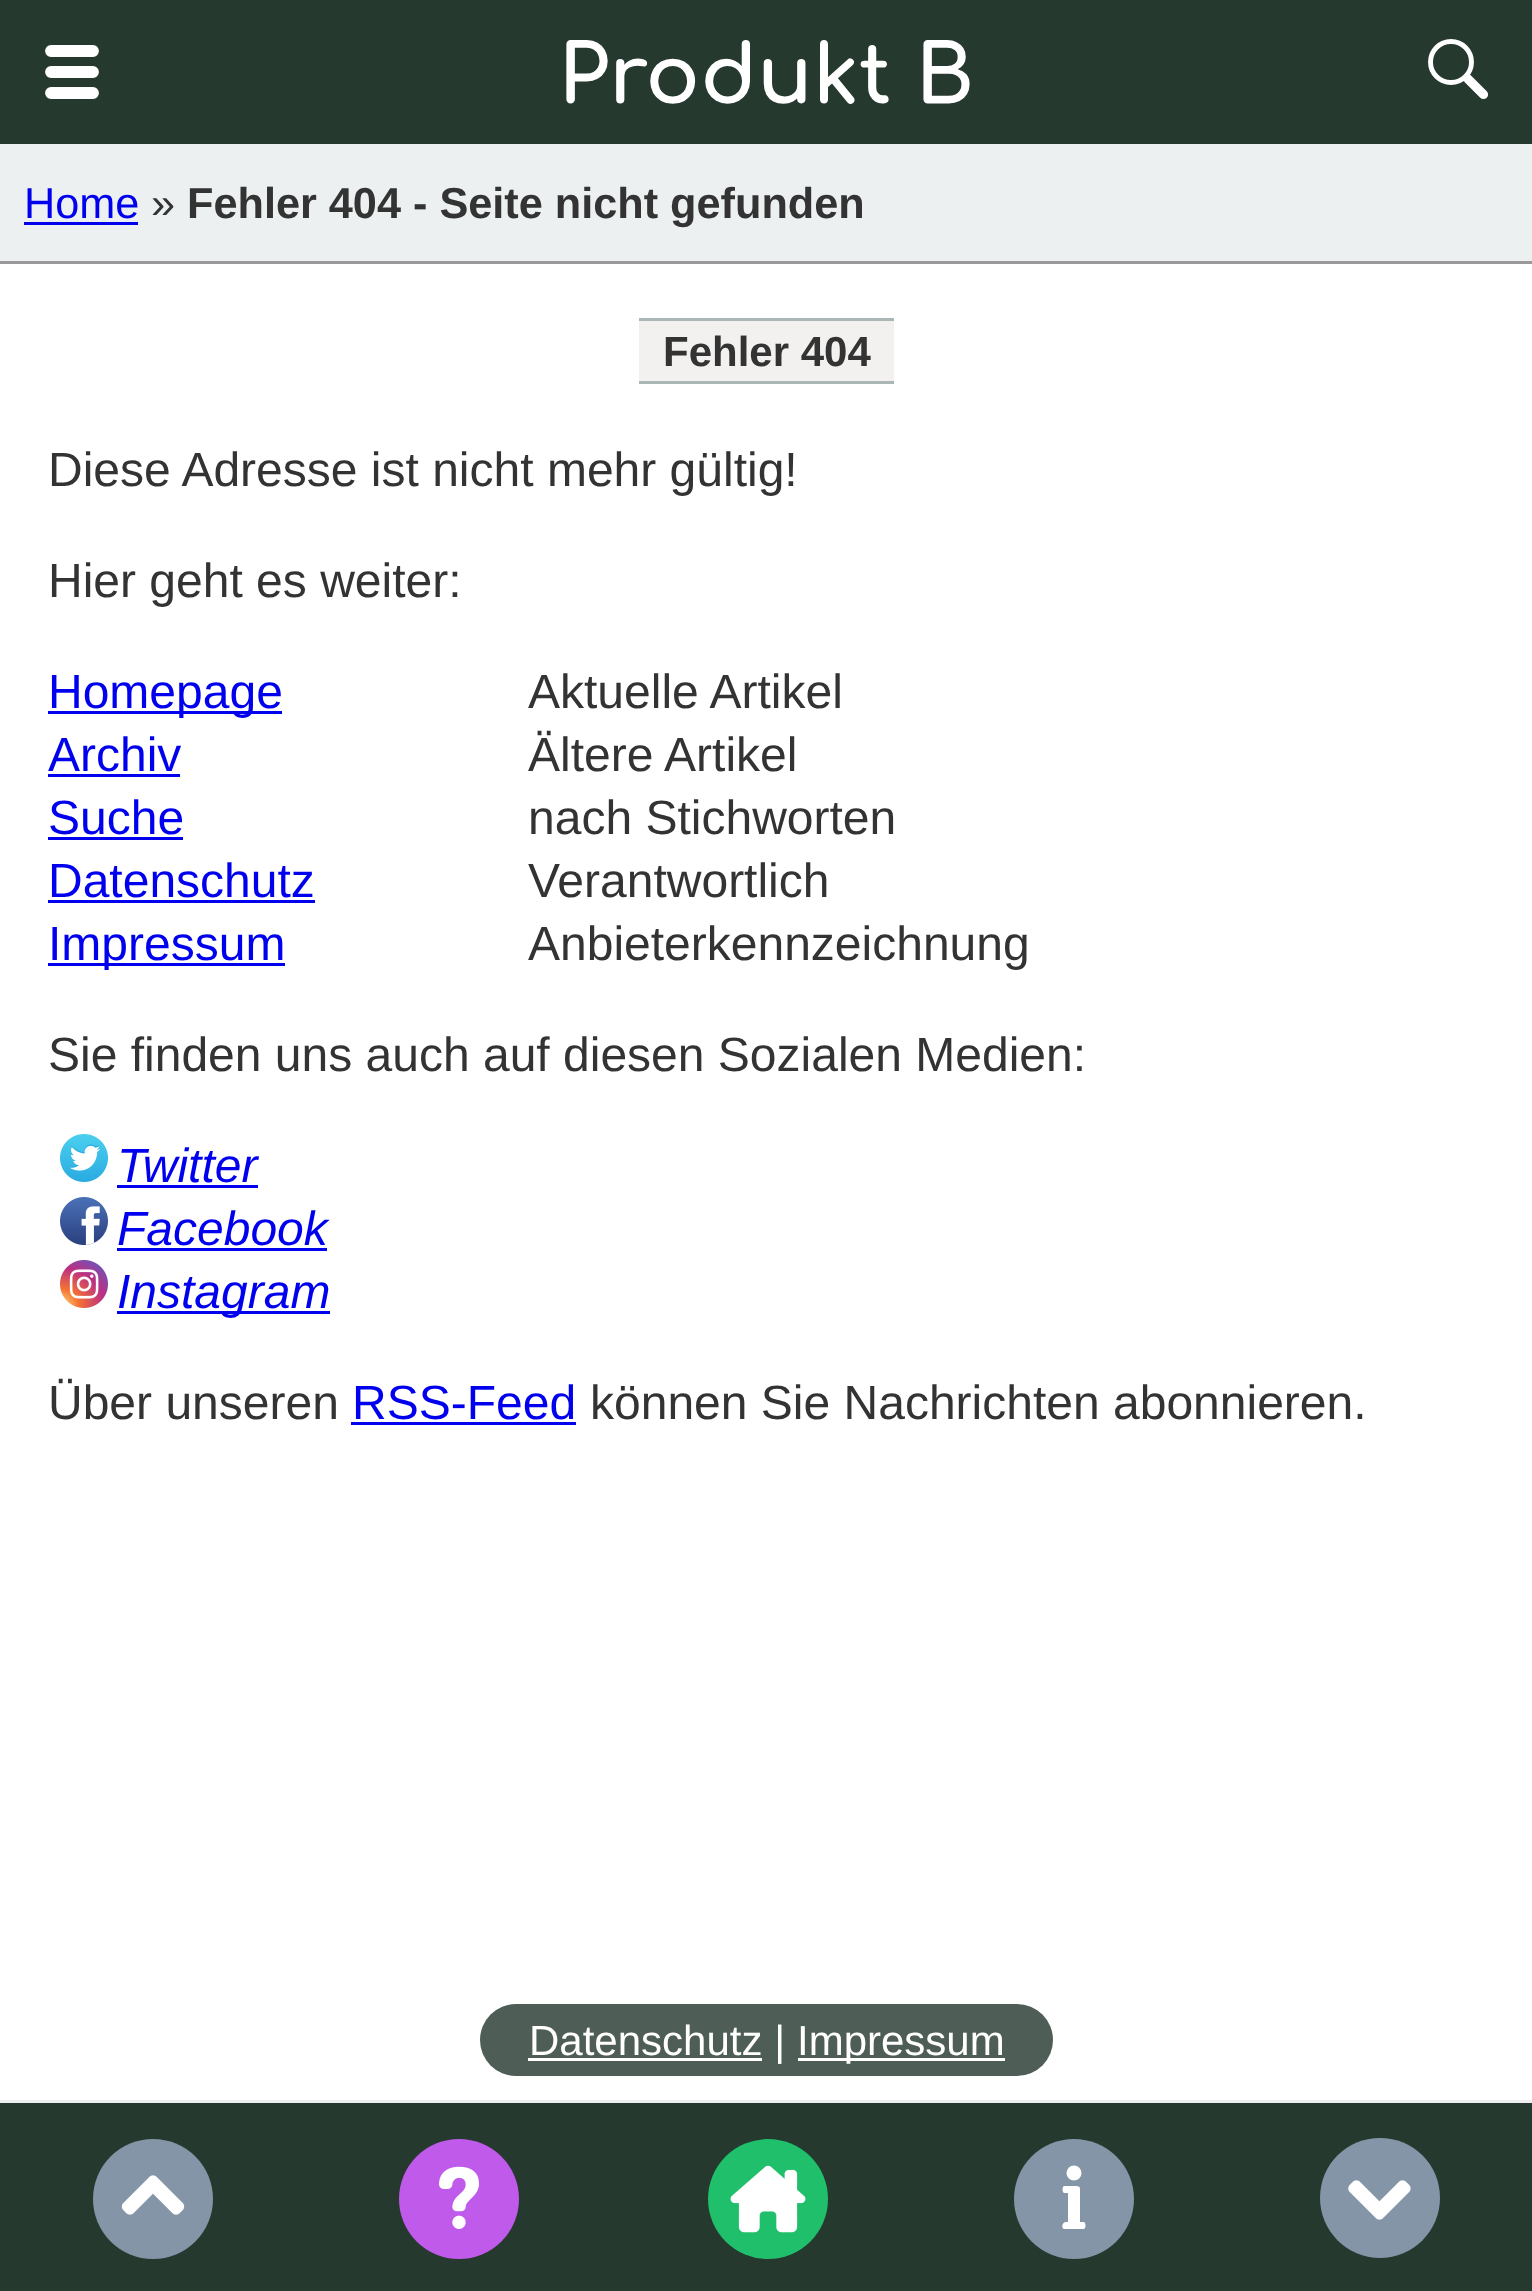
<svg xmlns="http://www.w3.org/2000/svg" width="1532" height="2291">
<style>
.a{font:43.25px Liberation Sans;fill:#00e}
.b{font:43.25px Liberation Sans;fill:#333}
.c{font:bold 43.25px Liberation Sans;fill:#333}
.d{font:bold 42px Liberation Sans;fill:#333}
.e{font:48px Liberation Sans;fill:#333}
.f{font:48px Liberation Sans;fill:#00e}
.g{font:italic 48px Liberation Sans;fill:#00e}
.h{font:42px Liberation Sans;fill:#fff}
</style>
<rect width="100%" height="100%" fill="#fff"/>
<path fill="#26392f" d="M0 0h1532v144H0z"/>
<path fill="none" stroke="#fff" stroke-width="11.8" stroke-linecap="round" d="M51 51h42m-42 21h42m-42 21h42"/>
<image href="1.png" x="566" y="40" width="404" height="64"/>
<circle fill="none" stroke="#fff" stroke-width="4.9" cx="1451" cy="62" r="20.5"/>
<path fill="none" stroke="#fff" stroke-width="9.2" stroke-linecap="round" d="M1468 79l15.5 15.5"/>
<path fill="#ecf0f1" d="M0 144h1532v117H0z"/>
<path fill="#999" d="M0 261h1532v3H0z"/>
<path fill="#00e" d="M24 222h114v3H24z"/>
<path fill="#f2f1ef" d="M639 321h255v60H639z"/>
<path fill="#abb7b7" d="M639 318h255v3H639z"/>
<path fill="#abb7b7" d="M639 381h255v3H639z"/>
<path fill="#00e" d="M48 711h234v3H48z"/>
<path fill="#00e" d="M48 774h132v3H48z"/>
<path fill="#00e" d="M48 837h135v3H48z"/>
<path fill="#00e" d="M48 900h267v3H48z"/>
<path fill="#00e" d="M48 963h237v3H48z"/>
<image href="2.png" x="60" y="1134" width="48" height="48"/>
<path fill="#00e" d="M117 1185h141v3H117z"/>
<image href="3.png" x="60" y="1197" width="48" height="48"/>
<path fill="#00e" d="M117 1248h210v3H117z"/>
<image href="4.png" x="60" y="1260" width="48" height="48"/>
<path fill="#00e" d="M117 1311h213v3H117z"/>
<path fill="#00e" d="M351 1422h225v3H351z"/>
<rect fill="#4e5d55" x="480" y="2004" width="573" height="72" rx="36"/>
<path fill="#fff" d="M528 2058h234v3H528z"/>
<path fill="#fff" d="M798 2058h207v3H798z"/>
<path fill="#26392f" d="M0 2103h1532v188H0z"/>
<path fill="#eee" d="M0 2100h1532v3H0z"/>
<circle fill="#8395a7" cx="153" cy="2199" r="60"/>
<image href="5.png" x="121" y="2175" width="64" height="40"/>
<circle fill="#c05aea" cx="459" cy="2199" r="60"/>
<image href="6.png" x="439" y="2166" width="40" height="63"/>
<circle fill="#20bf6b" cx="768" cy="2199" r="60"/>
<image href="7.png" x="730" y="2165" width="76" height="68"/>
<circle fill="#8395a7" cx="1074" cy="2199" r="60"/>
<path fill="#fff" d="M1066 2222h2v-29h-4c-2-1-2-6 0-7h9c8 0 7 0 7 8v28h4c2 1 2 6 0 7h-20c-3-1-2-7 2-7z"/>
<circle fill="#fff" cx="1074" cy="2173" r="7.5"/>
<path fill="#8395a7" d="M1380 2258c-33 0-60-27-60-60c0-34 27-60 60-60c33 0 60 26 60 60c0 33-27 60-60 60z"/>
<image href="8.png" x="1348" y="2180" width="63" height="40"/>
<text class="a" x="24" y="218">Home</text>
<text class="b" x="151" y="218">»</text>
<text class="c" x="187" y="218">Fehler 404 - Seite nicht gefunden</text>
<text class="d" x="663" y="366">Fehler 404</text>
<text class="e" x="48" y="486">Diese Adresse ist nicht mehr gültig!</text>
<text class="e" x="48" y="597">Hier geht es weiter:</text>
<text class="f" x="48" y="708">Homepage</text>
<text class="e" x="528" y="708">Aktuelle Artikel</text>
<text class="f" x="48" y="771">Archiv</text>
<text class="e" x="528" y="771">Ältere Artikel</text>
<text class="f" x="48" y="834">Suche</text>
<text class="e" x="528" y="834">nach Stichworten</text>
<text class="f" x="48" y="897">Datenschutz</text>
<text class="e" x="528" y="897">Verantwortlich</text>
<text class="f" x="48" y="960">Impressum</text>
<text class="e" x="528" y="960">Anbieterkennzeichnung</text>
<text class="e" x="48" y="1071">Sie finden uns auch auf diesen Sozialen Medien:</text>
<text class="g" x="117" y="1182">Twitter</text>
<text class="g" x="117" y="1245">Facebook</text>
<text class="g" x="117" y="1308">Instagram</text>
<text class="e" x="48" y="1419">Über unseren</text>
<text class="f" x="352" y="1419">RSS-Feed</text>
<text class="e" x="590" y="1419">können Sie Nachrichten abonnieren.</text>
<text class="h" x="529" y="2055">Datenschutz |</text>
<text class="h" x="797" y="2055">Impressum</text>
</svg>
